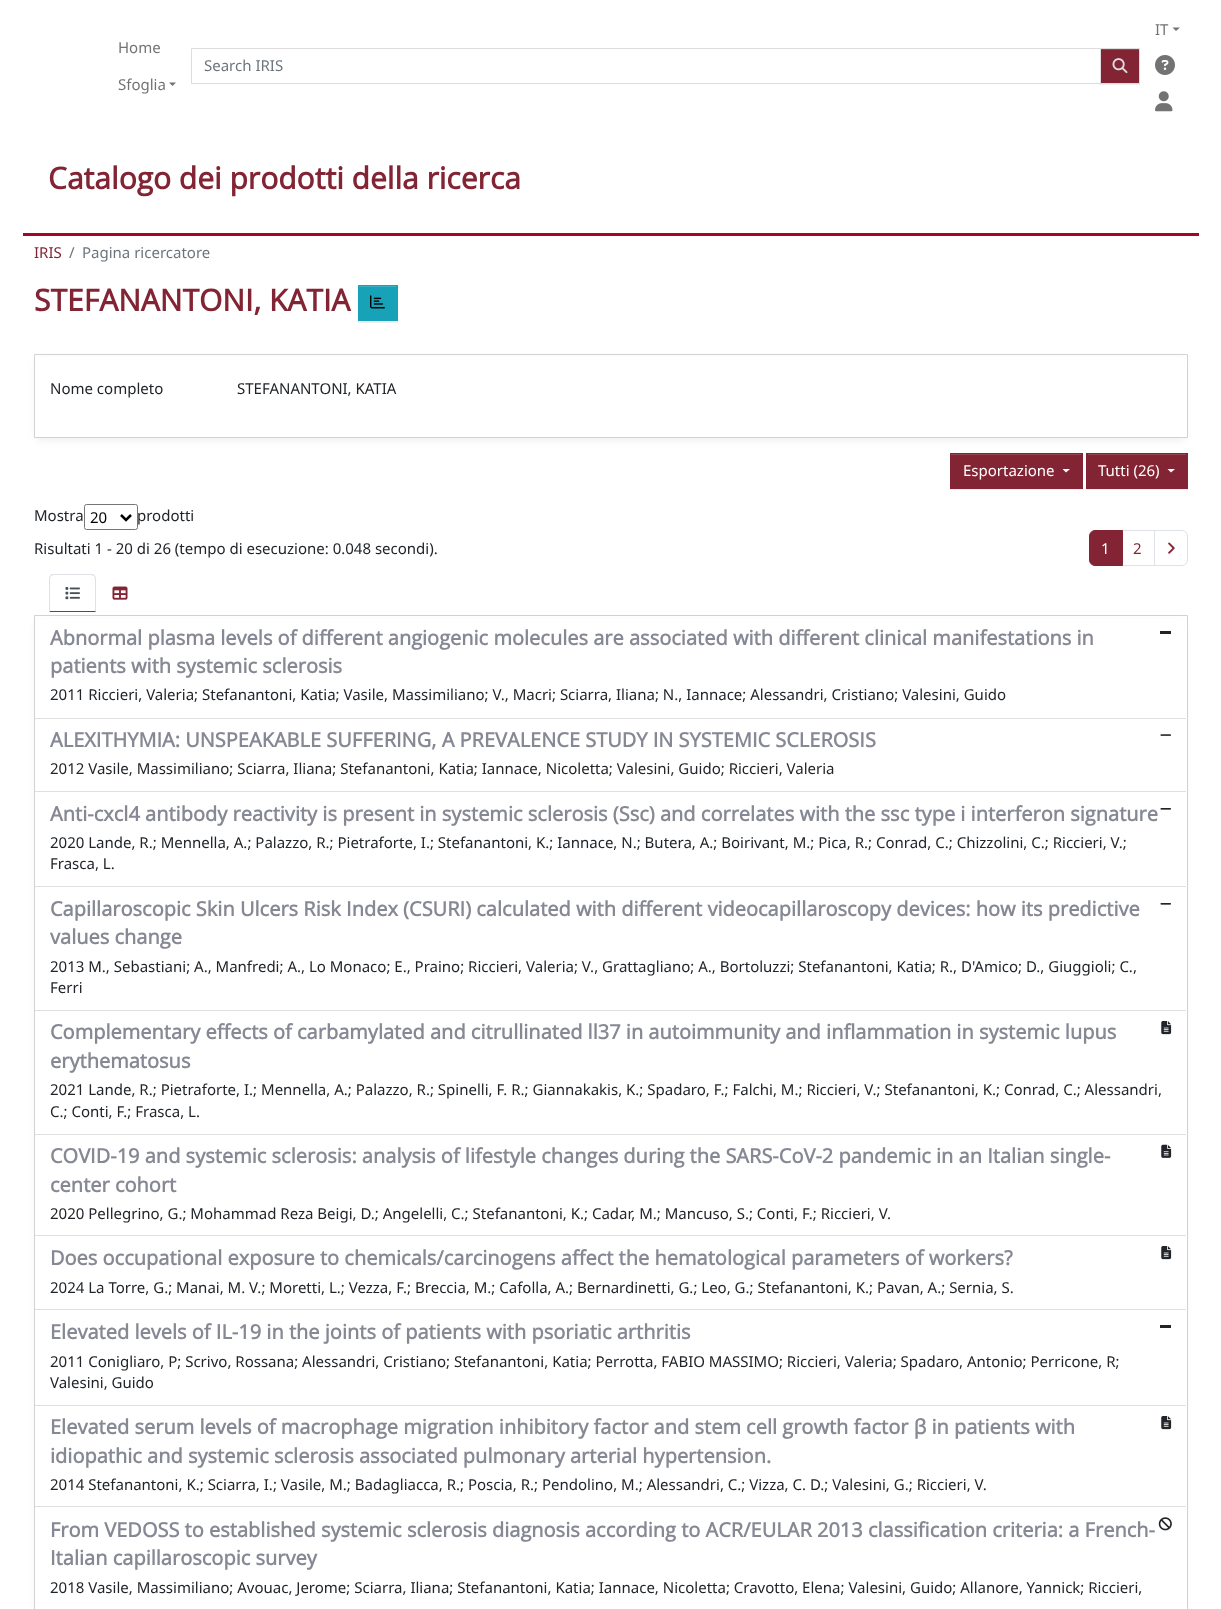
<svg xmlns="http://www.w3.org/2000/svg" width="1221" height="1609">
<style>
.a{font:15px Noto Sans;fill:#737373}
.b{font:15px Noto Sans;fill:#6c757d}
.c{font:bold 30px Open Sans;fill:#822433}
.d{font:15px Noto Sans;fill:#822433}
.e{font:15px Noto Sans;fill:#212529}
.f{font:15px Noto Sans;fill:#fff}
.g{font:15px Noto Sans;fill:#000}
.h{font:bold 20px Open Sans;fill:#868894}
</style>
<rect width="100%" height="100%" fill="#fff"/>
<path fill="#737373" d="M1172.5 27.5h7.5l-4 3.5z"/>
<image href="1.png" x="1155" y="55" width="20" height="20"/>
<image href="2.png" x="1155" y="91" width="18" height="21"/>
<path fill="#737373" d="M169 82.5h7l-3.5 3.5z"/>
<path fill="none" stroke="#ddd" d="M191.5 48.5h909v35H191.5z"/>
<path fill="#00000012" filter="blur(0.5px)" d="M1100 49h40v36H1100z"/>
<path fill="#822433" d="M1101 50h38v33H1101z"/>
<path fill="#954552" d="M1101 49h38v1H1101z"/>
<path fill="none" stroke="#ddd" d="M1100.5 48.5h39v35H1100.5z"/>
<image href="3.png" x="1112" y="58" width="16" height="16"/>
<path fill="#a90329" d="M23 233h1176v3H23z"/>
<path fill="#00000012" filter="blur(0.5px)" d="M358 286h40v37H358z"/>
<path fill="#17a2b8" d="M358 285h40v36H358z"/>
<path fill="#3ab0c3" d="M359 286h37v1H359z"/>
<image href="4.png" x="370" y="295" width="15" height="14"/>
<path fill="#eee" filter="blur(4px)" d="M36 361h1149v79H36z"/>
<path fill="#fff" d="M35 357h1152v80H35z"/>
<path fill="none" stroke="#d2d2d2" d="M34.5 354.5h1153v83H34.5z"/>
<path fill="#00000012" filter="blur(0.5px)" d="M950 454h133v36H950z"/>
<path fill="#822433" d="M950 453h133v36H950z"/>
<path fill="#954552" d="M951 454h130v1H951z"/>
<path fill="#fff" d="M1062.5 469h7.5l-4 3.5z"/>
<path fill="#00000012" filter="blur(0.5px)" d="M1086 454h102v36H1086z"/>
<path fill="#822433" d="M1086 453h102v36H1086z"/>
<path fill="#954552" d="M1088 454h98v1H1088z"/>
<path fill="#fff" d="M1167.5 469h7.5l-4 3.5z"/>
<rect fill="none" stroke="#767676" x="84.5" y="504.5" width="53" height="25" rx="2"/>
<path fill="none" stroke="#000" stroke-width="2.5" d="M121 515l5 5l5-5"/>
<path fill="none" stroke="#dee2e6" d="M1121.5 530.5h33v35H1121.5z"/>
<path fill="#822433" stroke="#822433" d="M1095 530.5h27.5v35h-27.5c-3 0-5.5-2.5-5.5-5.5v-24c0-3 2.5-5.5 5.5-5.5z"/>
<path fill="#fff" stroke="#dee2e6" d="M1154.5 530.5h27.5c3 0 5.5 2.5 5.5 5.5v24c0 3-2.5 5.5-5.5 5.5h-27.5z"/>
<image href="5.png" x="1168" y="542" width="7" height="12"/>
<path fill="#dee2e6" d="M54 574c-2 0-3 0-4 1l1 1c1 0 2-1 3-1h37c1 0 2 1 3 1l1-1c-1-1-3-1-4-1z"/>
<path fill="#dee2e6" d="M95 611l1 1v-33c0-1.5-.5-3-1.5-3.5l-.5 .5c.5 1 1 2 1 3z"/>
<path fill="#495057" d="M96 612h-47l1-1h45z"/>
<path fill="#dee2e6" d="M50.5 575.5c-1 .5-1.5 2-1.5 3.5v33l1-1v-32c0-1 .5-2 1-3z"/>
<image href="6.png" x="65" y="587" width="15" height="13"/>
<image href="7.png" x="112" y="586" width="16" height="14"/>
<path fill="#eee" filter="blur(4px)" d="M36 623h1149v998H36z"/>
<path fill="#fff" d="M35 619h1152v990H35z"/>
<path fill="none" stroke="#d2d2d2" d="M34.5 615.5h1153v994H34.5z"/>
<path fill="#dfdfdf" d="M35 718h1151v1H35z"/>
<path fill="#212529" d="M1160 631h11v3H1160z"/>
<path fill="#dfdfdf" d="M35 791h1151v1H35z"/>
<image href="8.png" x="1160" y="734" width="11" height="2"/>
<path fill="#dfdfdf" d="M35 886h1151v1H35z"/>
<image href="9.png" x="1160" y="808" width="11" height="2"/>
<path fill="#dfdfdf" d="M35 1010h1151v1H35z"/>
<image href="9.png" x="1160" y="903" width="11" height="2"/>
<path fill="#dfdfdf" d="M35 1134h1151v1H35z"/>
<image href="10.png" x="1161" y="1021" width="11" height="14"/>
<path fill="#dfdfdf" d="M35 1235h1151v1H35z"/>
<image href="11.png" x="1161" y="1144" width="11" height="14"/>
<path fill="#dfdfdf" d="M35 1309h1151v1H35z"/>
<image href="10.png" x="1161" y="1246" width="11" height="14"/>
<path fill="#dfdfdf" d="M35 1405h1151v1H35z"/>
<path fill="#212529" d="M1160 1325h11v3H1160z"/>
<path fill="#dfdfdf" d="M35 1506h1151v1H35z"/>
<image href="10.png" x="1161" y="1416" width="11" height="14"/>
<image href="12.png" x="1158" y="1517" width="14" height="14"/>
<text class="a" x="1155" y="35">IT</text>
<text class="a" x="118" y="53">Home</text>
<text class="a" x="118" y="90">Sfoglia</text>
<text class="b" x="204" y="71">Search IRIS</text>
<text class="c" x="48" y="189">Catalogo dei prodotti della ricerca</text>
<text class="d" x="34" y="258">IRIS</text>
<text class="b" x="69" y="258">/</text>
<text class="b" x="82" y="258">Pagina ricercatore</text>
<text class="c" x="34" y="311">STEFANANTONI, KATIA</text>
<text class="e" x="50" y="394">Nome completo</text>
<text class="e" x="237" y="394">STEFANANTONI, KATIA</text>
<text class="f" x="963" y="476">Esportazione</text>
<text class="f" x="1098" y="476">Tutti (26)</text>
<text class="e" x="34" y="521">Mostra</text>
<text class="g" x="90" y="523">20</text>
<text class="e" x="137" y="521">prodotti</text>
<text class="e" x="34" y="554">Risultati 1 - 20 di 26 (tempo di esecuzione: 0.048 secondi).</text>
<text class="f" x="1101" y="554">1</text>
<text class="d" x="1133" y="554">2</text>
<text class="h" x="50" y="645">Abnormal plasma levels of different angiogenic molecules are associated with different clinical manifestations in</text>
<text class="h" x="50" y="673">patients with systemic sclerosis</text>
<text class="e" x="50" y="700">2011 Riccieri, Valeria; Stefanantoni, Katia; Vasile, Massimiliano; V., Macri; Sciarra, Iliana; N., Iannace; Alessandri, Cristiano; Valesini, Guido</text>
<text class="h" x="50" y="747">ALEXITHYMIA: UNSPEAKABLE SUFFERING, A PREVALENCE STUDY IN SYSTEMIC SCLEROSIS</text>
<text class="e" x="50" y="774">2012 Vasile, Massimiliano; Sciarra, Iliana; Stefanantoni, Katia; Iannace, Nicoletta; Valesini, Guido; Riccieri, Valeria</text>
<text class="h" x="50" y="821">Anti-cxcl4 antibody reactivity is present in systemic sclerosis (Ssc) and correlates with the ssc type i interferon signature</text>
<text class="e" x="50" y="848">2020 Lande, R.; Mennella, A.; Palazzo, R.; Pietraforte, I.; Stefanantoni, K.; Iannace, N.; Butera, A.; Boirivant, M.; Pica, R.; Conrad, C.; Chizzolini, C.; Riccieri, V.;</text>
<text class="e" x="50" y="869">Frasca, L.</text>
<text class="h" x="50" y="916">Capillaroscopic Skin Ulcers Risk Index (CSURI) calculated with different videocapillaroscopy devices: how its predictive</text>
<text class="h" x="50" y="944">values change</text>
<text class="e" x="50" y="972">2013 M., Sebastiani; A., Manfredi; A., Lo Monaco; E., Praino; Riccieri, Valeria; V., Grattagliano; A., Bortoluzzi; Stefanantoni, Katia; R., D'Amico; D., Giuggioli; C.,</text>
<text class="e" x="50" y="993">Ferri</text>
<text class="h" x="50" y="1039">Complementary effects of carbamylated and citrullinated ll37 in autoimmunity and inflammation in systemic lupus</text>
<text class="h" x="50" y="1068">erythematosus</text>
<text class="e" x="50" y="1095">2021 Lande, R.; Pietraforte, I.; Mennella, A.; Palazzo, R.; Spinelli, F. R.; Giannakakis, K.; Spadaro, F.; Falchi, M.; Riccieri, V.; Stefanantoni, K.; Conrad, C.; Alessandri,</text>
<text class="e" x="50" y="1117">C.; Conti, F.; Frasca, L.</text>
<text class="h" x="50" y="1163">COVID-19 and systemic sclerosis: analysis of lifestyle changes during the SARS-CoV-2 pandemic in an Italian single-</text>
<text class="h" x="50" y="1192">center cohort</text>
<text class="e" x="50" y="1219">2020 Pellegrino, G.; Mohammad Reza Beigi, D.; Angelelli, C.; Stefanantoni, K.; Cadar, M.; Mancuso, S.; Conti, F.; Riccieri, V.</text>
<text class="h" x="50" y="1265">Does occupational exposure to chemicals/carcinogens affect the hematological parameters of workers?</text>
<text class="e" x="50" y="1293">2024 La Torre, G.; Manai, M. V.; Moretti, L.; Vezza, F.; Breccia, M.; Cafolla, A.; Bernardinetti, G.; Leo, G.; Stefanantoni, K.; Pavan, A.; Sernia, S.</text>
<text class="h" x="50" y="1339">Elevated levels of IL-19 in the joints of patients with psoriatic arthritis</text>
<text class="e" x="50" y="1367">2011 Conigliaro, P; Scrivo, Rossana; Alessandri, Cristiano; Stefanantoni, Katia; Perrotta, FABIO MASSIMO; Riccieri, Valeria; Spadaro, Antonio; Perricone, R;</text>
<text class="e" x="50" y="1388">Valesini, Guido</text>
<text class="h" x="50" y="1434">Elevated serum levels of macrophage migration inhibitory factor and stem cell growth factor β in patients with</text>
<text class="h" x="50" y="1463">idiopathic and systemic sclerosis associated pulmonary arterial hypertension.</text>
<text class="e" x="50" y="1490">2014 Stefanantoni, K.; Sciarra, I.; Vasile, M.; Badagliacca, R.; Poscia, R.; Pendolino, M.; Alessandri, C.; Vizza, C. D.; Valesini, G.; Riccieri, V.</text>
<text class="h" x="50" y="1537">From VEDOSS to established systemic sclerosis diagnosis according to ACR/EULAR 2013 classification criteria: a French-</text>
<text class="h" x="50" y="1565">Italian capillaroscopic survey</text>
<text class="e" x="50" y="1593">2018 Vasile, Massimiliano; Avouac, Jerome; Sciarra, Iliana; Stefanantoni, Katia; Iannace, Nicoletta; Cravotto, Elena; Valesini, Guido; Allanore, Yannick; Riccieri,</text>
</svg>
